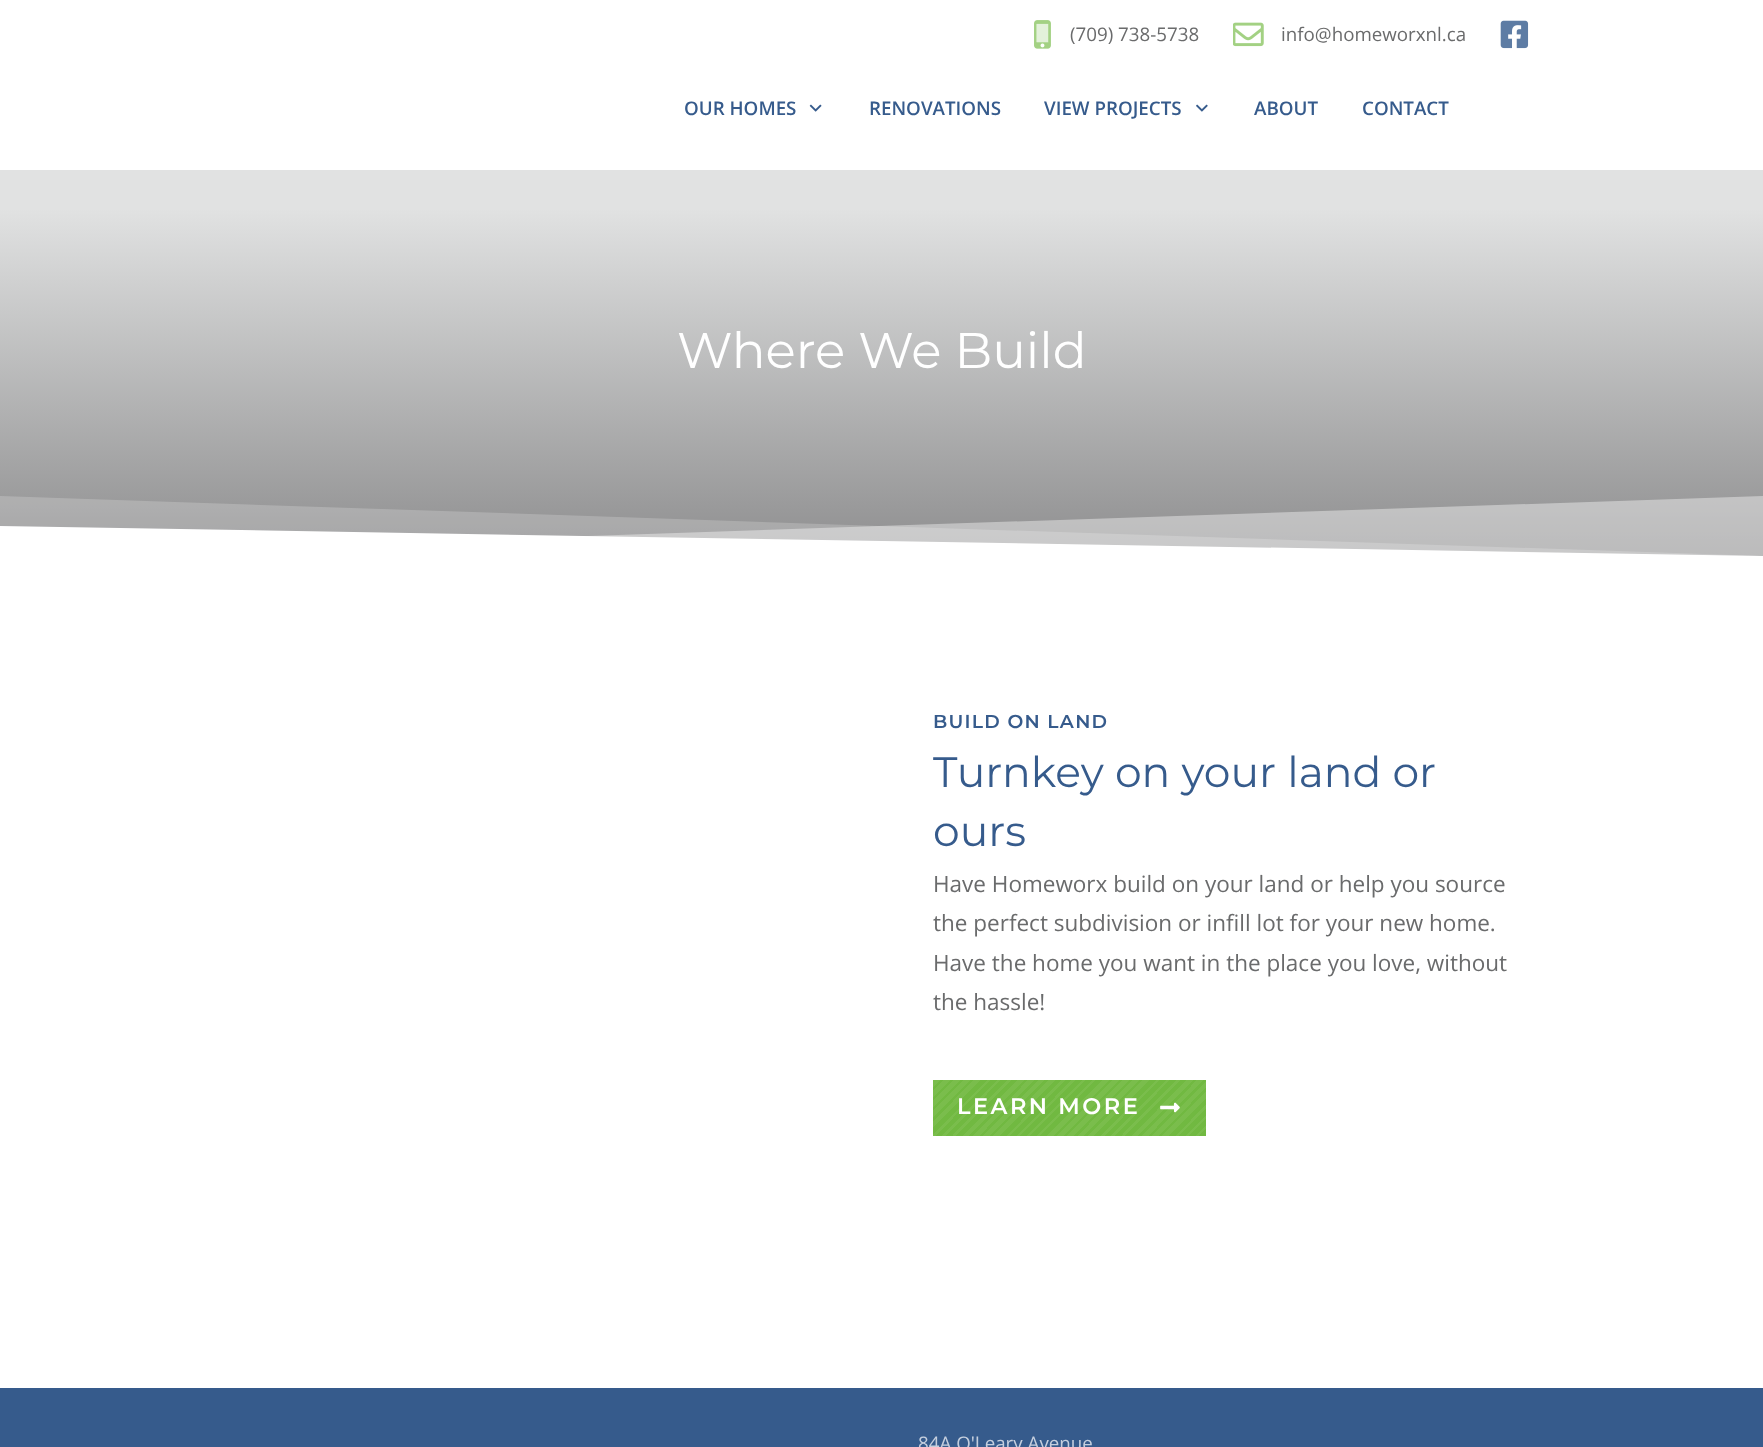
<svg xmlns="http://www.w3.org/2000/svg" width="1763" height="1447">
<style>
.a{font:18.75px Open Sans;fill:#6a6b6c}
.b{font:600 18.75px Open Sans;fill:#365b8c}
.c{font:100 50px Montserrat;fill:#fff}
.d{font:100 18.75px 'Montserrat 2';letter-spacing:1.25px;fill:#365b8c}
.e{font:100 42.5px Montserrat;fill:#365b8c}
.f{font:22.5px Open Sans;fill:#6a6b6c}
.g{font:100 22.5px 'Montserrat 2';letter-spacing:2.5px;fill:#fff}
.h{font:18.75px Open Sans;fill:#c5cfde}
</style>
<defs>
<linearGradient id="g1" gradientUnits="userSpaceOnUse" x1="882" y1="170" x2="882" y2="556"><stop offset="0.1" stop-color="#e1e2e2"/><stop offset="1" stop-color="#8e8e8f"/></linearGradient>
<linearGradient id="g2" gradientUnits="userSpaceOnUse" x1="987" y1="1026" x2="1157" y2="1195"><stop offset="0" stop-color="#7abd4c"/><stop offset="0.02" stop-color="#7abd4c"/><stop offset="0.02" stop-color="#71b941"/><stop offset="0.03" stop-color="#71b941"/><stop offset="0.03" stop-color="#7abd4c"/><stop offset="0.05" stop-color="#7abd4c"/><stop offset="0.05" stop-color="#71b941"/><stop offset="0.06" stop-color="#71b941"/><stop offset="0.06" stop-color="#7abd4c"/><stop offset="0.08" stop-color="#7abd4c"/><stop offset="0.08" stop-color="#71b941"/><stop offset="0.09" stop-color="#71b941"/><stop offset="0.09" stop-color="#7abd4c"/><stop offset="0.11" stop-color="#7abd4c"/><stop offset="0.11" stop-color="#71b941"/><stop offset="0.12" stop-color="#71b941"/><stop offset="0.12" stop-color="#7abd4c"/><stop offset="0.14" stop-color="#7abd4c"/><stop offset="0.14" stop-color="#71b941"/><stop offset="0.16" stop-color="#71b941"/><stop offset="0.16" stop-color="#7abd4c"/><stop offset="0.17" stop-color="#7abd4c"/><stop offset="0.17" stop-color="#71b941"/><stop offset="0.19" stop-color="#71b941"/><stop offset="0.19" stop-color="#7abd4c"/><stop offset="0.2" stop-color="#7abd4c"/><stop offset="0.2" stop-color="#71b941"/><stop offset="0.22" stop-color="#71b941"/><stop offset="0.22" stop-color="#7abd4c"/><stop offset="0.23" stop-color="#7abd4c"/><stop offset="0.23" stop-color="#71b941"/><stop offset="0.25" stop-color="#71b941"/><stop offset="0.25" stop-color="#7abd4c"/><stop offset="0.27" stop-color="#7abd4c"/><stop offset="0.27" stop-color="#71b941"/><stop offset="0.28" stop-color="#71b941"/><stop offset="0.28" stop-color="#7abd4c"/><stop offset="0.3" stop-color="#7abd4c"/><stop offset="0.3" stop-color="#71b941"/><stop offset="0.31" stop-color="#71b941"/><stop offset="0.31" stop-color="#7abd4c"/><stop offset="0.33" stop-color="#7abd4c"/><stop offset="0.33" stop-color="#71b941"/><stop offset="0.34" stop-color="#71b941"/><stop offset="0.34" stop-color="#7abd4c"/><stop offset="0.36" stop-color="#7abd4c"/><stop offset="0.36" stop-color="#71b941"/><stop offset="0.38" stop-color="#71b941"/><stop offset="0.38" stop-color="#7abd4c"/><stop offset="0.39" stop-color="#7abd4c"/><stop offset="0.39" stop-color="#71b941"/><stop offset="0.41" stop-color="#71b941"/><stop offset="0.41" stop-color="#7abd4c"/><stop offset="0.42" stop-color="#7abd4c"/><stop offset="0.42" stop-color="#71b941"/><stop offset="0.44" stop-color="#71b941"/><stop offset="0.44" stop-color="#7abd4c"/><stop offset="0.45" stop-color="#7abd4c"/><stop offset="0.45" stop-color="#71b941"/><stop offset="0.47" stop-color="#71b941"/><stop offset="0.47" stop-color="#7abd4c"/><stop offset="0.48" stop-color="#7abd4c"/><stop offset="0.48" stop-color="#71b941"/><stop offset="0.5" stop-color="#71b941"/><stop offset="0.5" stop-color="#7abd4c"/><stop offset="0.52" stop-color="#7abd4c"/><stop offset="0.52" stop-color="#71b941"/><stop offset="0.53" stop-color="#71b941"/><stop offset="0.53" stop-color="#7abd4c"/><stop offset="0.55" stop-color="#7abd4c"/><stop offset="0.55" stop-color="#71b941"/><stop offset="0.56" stop-color="#71b941"/><stop offset="0.56" stop-color="#7abd4c"/><stop offset="0.58" stop-color="#7abd4c"/><stop offset="0.58" stop-color="#71b941"/><stop offset="0.59" stop-color="#71b941"/><stop offset="0.59" stop-color="#7abd4c"/><stop offset="0.61" stop-color="#7abd4c"/><stop offset="0.61" stop-color="#71b941"/><stop offset="0.62" stop-color="#71b941"/><stop offset="0.62" stop-color="#7abd4c"/><stop offset="0.64" stop-color="#7abd4c"/><stop offset="0.64" stop-color="#71b941"/><stop offset="0.66" stop-color="#71b941"/><stop offset="0.66" stop-color="#7abd4c"/><stop offset="0.67" stop-color="#7abd4c"/><stop offset="0.67" stop-color="#71b941"/><stop offset="0.69" stop-color="#71b941"/><stop offset="0.69" stop-color="#7abd4c"/><stop offset="0.7" stop-color="#7abd4c"/><stop offset="0.7" stop-color="#71b941"/><stop offset="0.72" stop-color="#71b941"/><stop offset="0.72" stop-color="#7abd4c"/><stop offset="0.73" stop-color="#7abd4c"/><stop offset="0.73" stop-color="#71b941"/><stop offset="0.75" stop-color="#71b941"/><stop offset="0.75" stop-color="#7abd4c"/><stop offset="0.77" stop-color="#7abd4c"/><stop offset="0.77" stop-color="#71b941"/><stop offset="0.78" stop-color="#71b941"/><stop offset="0.78" stop-color="#7abd4c"/><stop offset="0.8" stop-color="#7abd4c"/><stop offset="0.8" stop-color="#71b941"/><stop offset="0.81" stop-color="#71b941"/><stop offset="0.81" stop-color="#7abd4c"/><stop offset="0.83" stop-color="#7abd4c"/><stop offset="0.83" stop-color="#71b941"/><stop offset="0.84" stop-color="#71b941"/><stop offset="0.84" stop-color="#7abd4c"/><stop offset="0.86" stop-color="#7abd4c"/><stop offset="0.86" stop-color="#71b941"/><stop offset="0.88" stop-color="#71b941"/><stop offset="0.88" stop-color="#7abd4c"/><stop offset="0.89" stop-color="#7abd4c"/><stop offset="0.89" stop-color="#71b941"/><stop offset="0.91" stop-color="#71b941"/><stop offset="0.91" stop-color="#7abd4c"/><stop offset="0.92" stop-color="#7abd4c"/><stop offset="0.92" stop-color="#71b941"/><stop offset="0.94" stop-color="#71b941"/><stop offset="0.94" stop-color="#7abd4c"/><stop offset="0.95" stop-color="#7abd4c"/><stop offset="0.95" stop-color="#71b941"/><stop offset="0.97" stop-color="#71b941"/><stop offset="0.97" stop-color="#7abd4c"/><stop offset="0.98" stop-color="#7abd4c"/><stop offset="0.98" stop-color="#71b941"/><stop offset="1" stop-color="#71b941"/></linearGradient>
</defs>
<rect width="100%" height="100%" fill="#fff"/>
<image href="1.png" x="1034" y="20" width="17" height="29"/>
<image href="2.png" x="1233" y="22" width="31" height="25"/>
<image href="3.png" x="1500" y="20" width="29" height="29"/>
<image href="4.png" x="809" y="104" width="13" height="8"/>
<image href="5.png" x="1196" y="104" width="12" height="8"/>
<path fill="url(#g1)" d="M0 170h1763v386H0z"/>
<path fill="#ffffff33" d="M0 496l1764 60h-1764z"/>
<path fill="#ffffff66" d="M0 556l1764-60v60z"/>
<path fill="#fff" d="M0 526v30h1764z"/>
<path fill="url(#g2)" d="M933 1080h273v56H933z"/>
<image href="6.png" x="1160" y="1102" width="20" height="11"/>
<path fill="#365b8c" d="M0 1388h1763v59H0z"/>
<text class="a" x="1070" y="41">(709) 738-5738</text>
<text class="a" x="1281" y="41">info@homeworxnl.ca</text>
<text class="b" x="684" y="115">OUR HOMES</text>
<text class="b" x="869" y="115">RENOVATIONS</text>
<text class="b" x="1044" y="115">VIEW PROJECTS</text>
<text class="b" x="1254" y="115">ABOUT</text>
<text class="b" x="1362" y="115">CONTACT</text>
<text class="c" x="677" y="368">Where We Build</text>
<text class="d" x="933" y="728">BUILD ON LAND</text>
<text class="e" x="933" y="787">Turnkey on your land or</text>
<text class="e" x="933" y="846">ours</text>
<text class="f" x="933" y="892">Have Homeworx build on your land or help you source</text>
<text class="f" x="933" y="931">the perfect subdivision or infill lot for your new home.</text>
<text class="f" x="933" y="971">Have the home you want in the place you love, without</text>
<text class="f" x="933" y="1010">the hassle!</text>
<text class="g" x="957" y="1114">LEARN MORE</text>
<text class="h" x="918" y="1450">84A O'Leary Avenue</text>
</svg>
